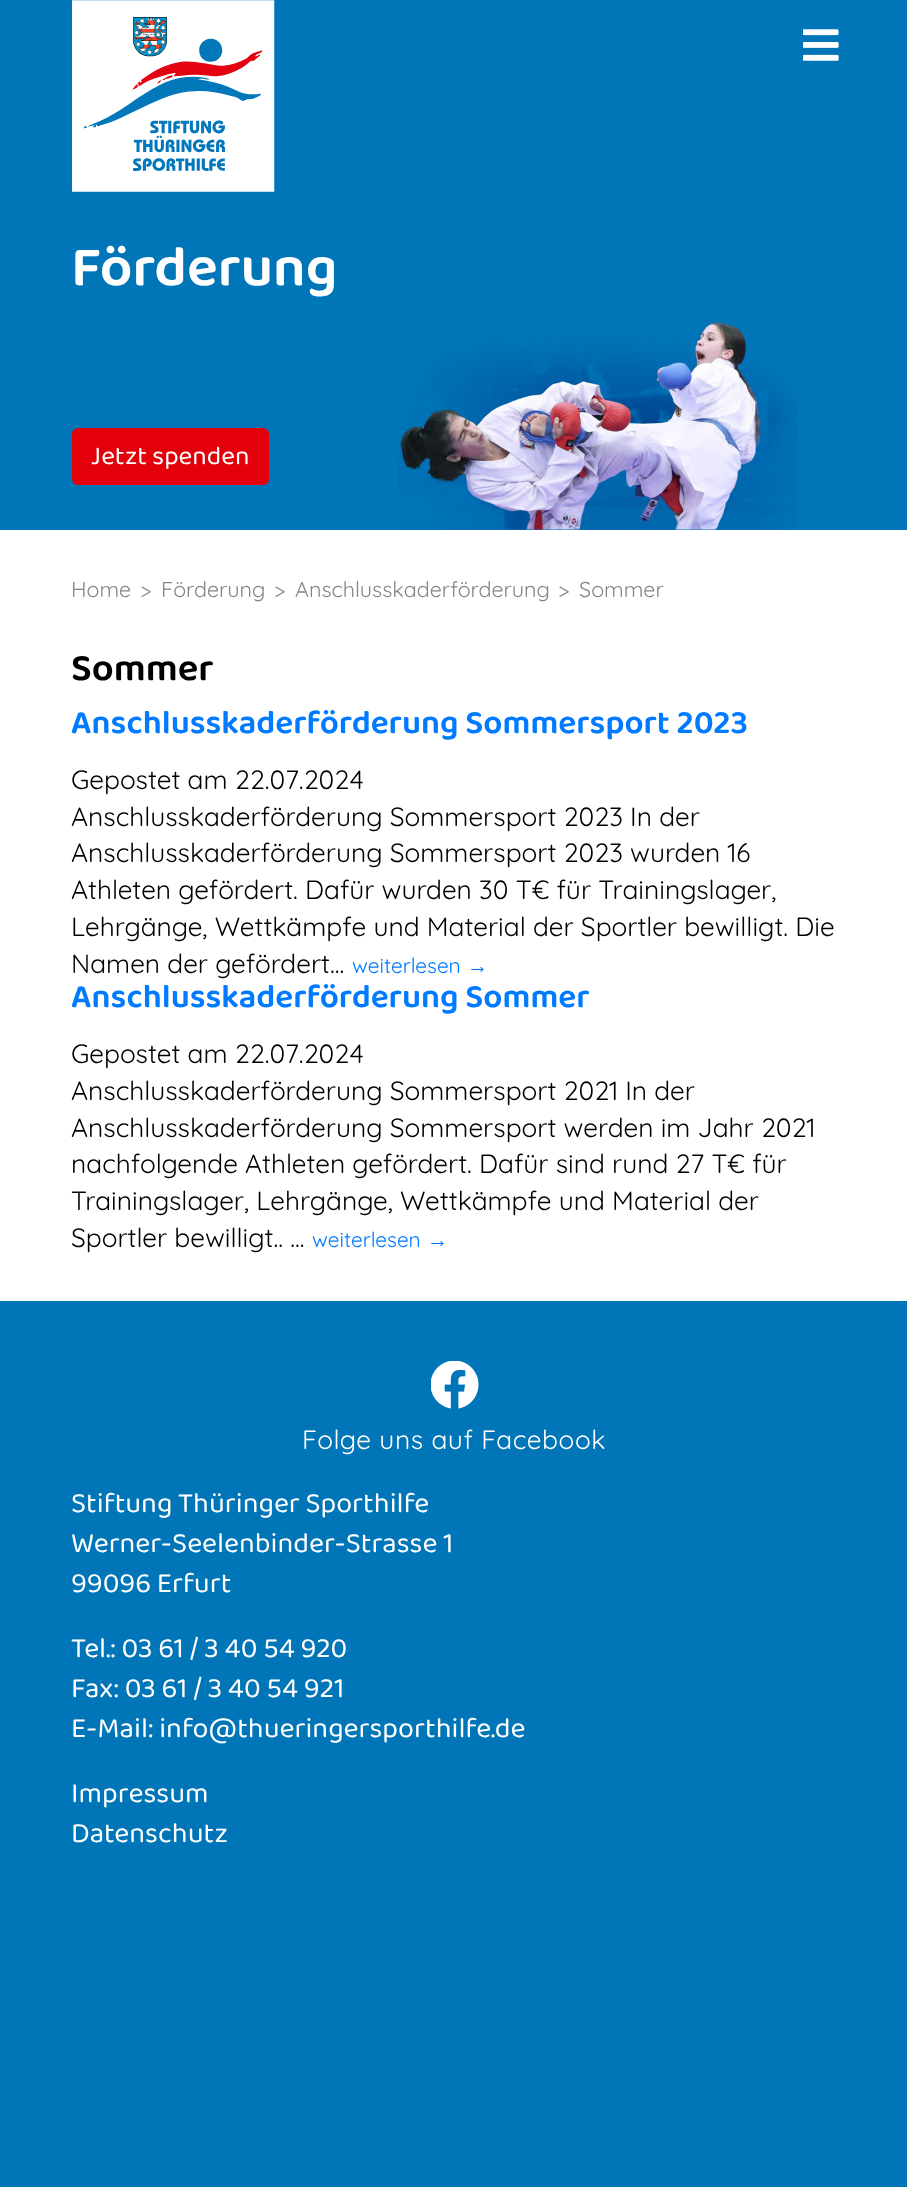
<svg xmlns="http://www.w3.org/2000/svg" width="907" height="2187">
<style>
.a{font:600 57.5px 'Baloo Tamma 2';fill:#fff}
.b{font:26.4px 'Baloo Tamma 2';fill:#fff}
.c{font:21.6px Quicksand;fill:#868686}
.d{font:600 38.5px 'Baloo Tamma 2';fill:#000}
.e{font:600 33.6px 'Baloo Tamma 2';fill:#007bff}
.f{font:26.4px Quicksand;fill:#000}
.g{font:21px Quicksand;fill:#007bff}
.h{font:21px Liberation Sans;fill:#007bff}
.i{font:26.4px Quicksand;letter-spacing:0.6px;fill:#fff}
.j{font:28.75px 'Baloo Tamma 2';fill:#fff}
</style>
<rect width="100%" height="100%" fill="#0075b8"/>
<image href="1.png" x="72" y="0" width="203" height="192"/>
<image href="2.png" x="803" y="29" width="36" height="32"/>
<rect fill="#e3000b" x="72" y="428" width="197" height="57" rx="6"/>
<image href="3.png" x="398" y="321" width="400" height="209"/>
<path fill="#fff" d="M0 530h907v771H0z"/>
<image href="4.png" x="431" y="1361" width="48" height="48"/>
<text class="a" x="71" y="285">Förderung</text>
<text class="b" x="91" y="464">Jetzt spenden</text>
<text class="c" x="71" y="597">Home</text>
<text class="c" x="140" y="597">&gt;</text>
<text class="c" x="161" y="597">Förderung</text>
<text class="c" x="274" y="597">&gt;</text>
<text class="c" x="295" y="597">Anschlusskaderförderung</text>
<text class="c" x="558" y="597">&gt;</text>
<text class="c" x="579" y="597">Sommer</text>
<text class="d" x="71" y="680">Sommer</text>
<text class="e" x="71" y="733">Anschlusskaderförderung Sommersport 2023</text>
<text class="f" x="71" y="789">Gepostet am 22.07.2024</text>
<text class="f" x="71" y="826">Anschlusskaderförderung Sommersport 2023 In der</text>
<text class="f" x="71" y="862">Anschlusskaderförderung Sommersport 2023 wurden 16</text>
<text class="f" x="71" y="899">Athleten gefördert. Dafür wurden 30 T€ für Trainingslager,</text>
<text class="f" x="71" y="936">Lehrgänge, Wettkämpfe und Material der Sportler bewilligt. Die</text>
<text class="f" x="71" y="973">Namen der gefördert...</text>
<text class="g" x="352" y="973">weiterlesen</text>
<text class="h" x="467" y="973">→</text>
<text class="e" x="71" y="1007">Anschlusskaderförderung Sommer</text>
<text class="f" x="71" y="1063">Gepostet am 22.07.2024</text>
<text class="f" x="71" y="1100">Anschlusskaderförderung Sommersport 2021 In der</text>
<text class="f" x="71" y="1137">Anschlusskaderförderung Sommersport werden im Jahr 2021</text>
<text class="f" x="71" y="1173">nachfolgende Athleten gefördert. Dafür sind rund 27 T€ für</text>
<text class="f" x="71" y="1210">Trainingslager, Lehrgänge, Wettkämpfe und Material der</text>
<text class="f" x="71" y="1247">Sportler bewilligt.. ...</text>
<text class="g" x="312" y="1247">weiterlesen</text>
<text class="h" x="427" y="1247">→</text>
<text class="i" x="302" y="1449">Folge uns auf Facebook</text>
<text class="j" x="71" y="1512">Stiftung Thüringer Sporthilfe</text>
<text class="j" x="71" y="1552">Werner-Seelenbinder-Strasse 1</text>
<text class="j" x="71" y="1592">99096 Erfurt</text>
<text class="j" x="71" y="1657">Tel.: 03 61 / 3 40 54 920</text>
<text class="j" x="71" y="1697">Fax: 03 61 / 3 40 54 921</text>
<text class="j" x="71" y="1737">E-Mail: info@thueringersporthilfe.de</text>
<text class="j" x="71" y="1802">Impressum</text>
<text class="j" x="71" y="1842">Datenschutz</text>
</svg>
